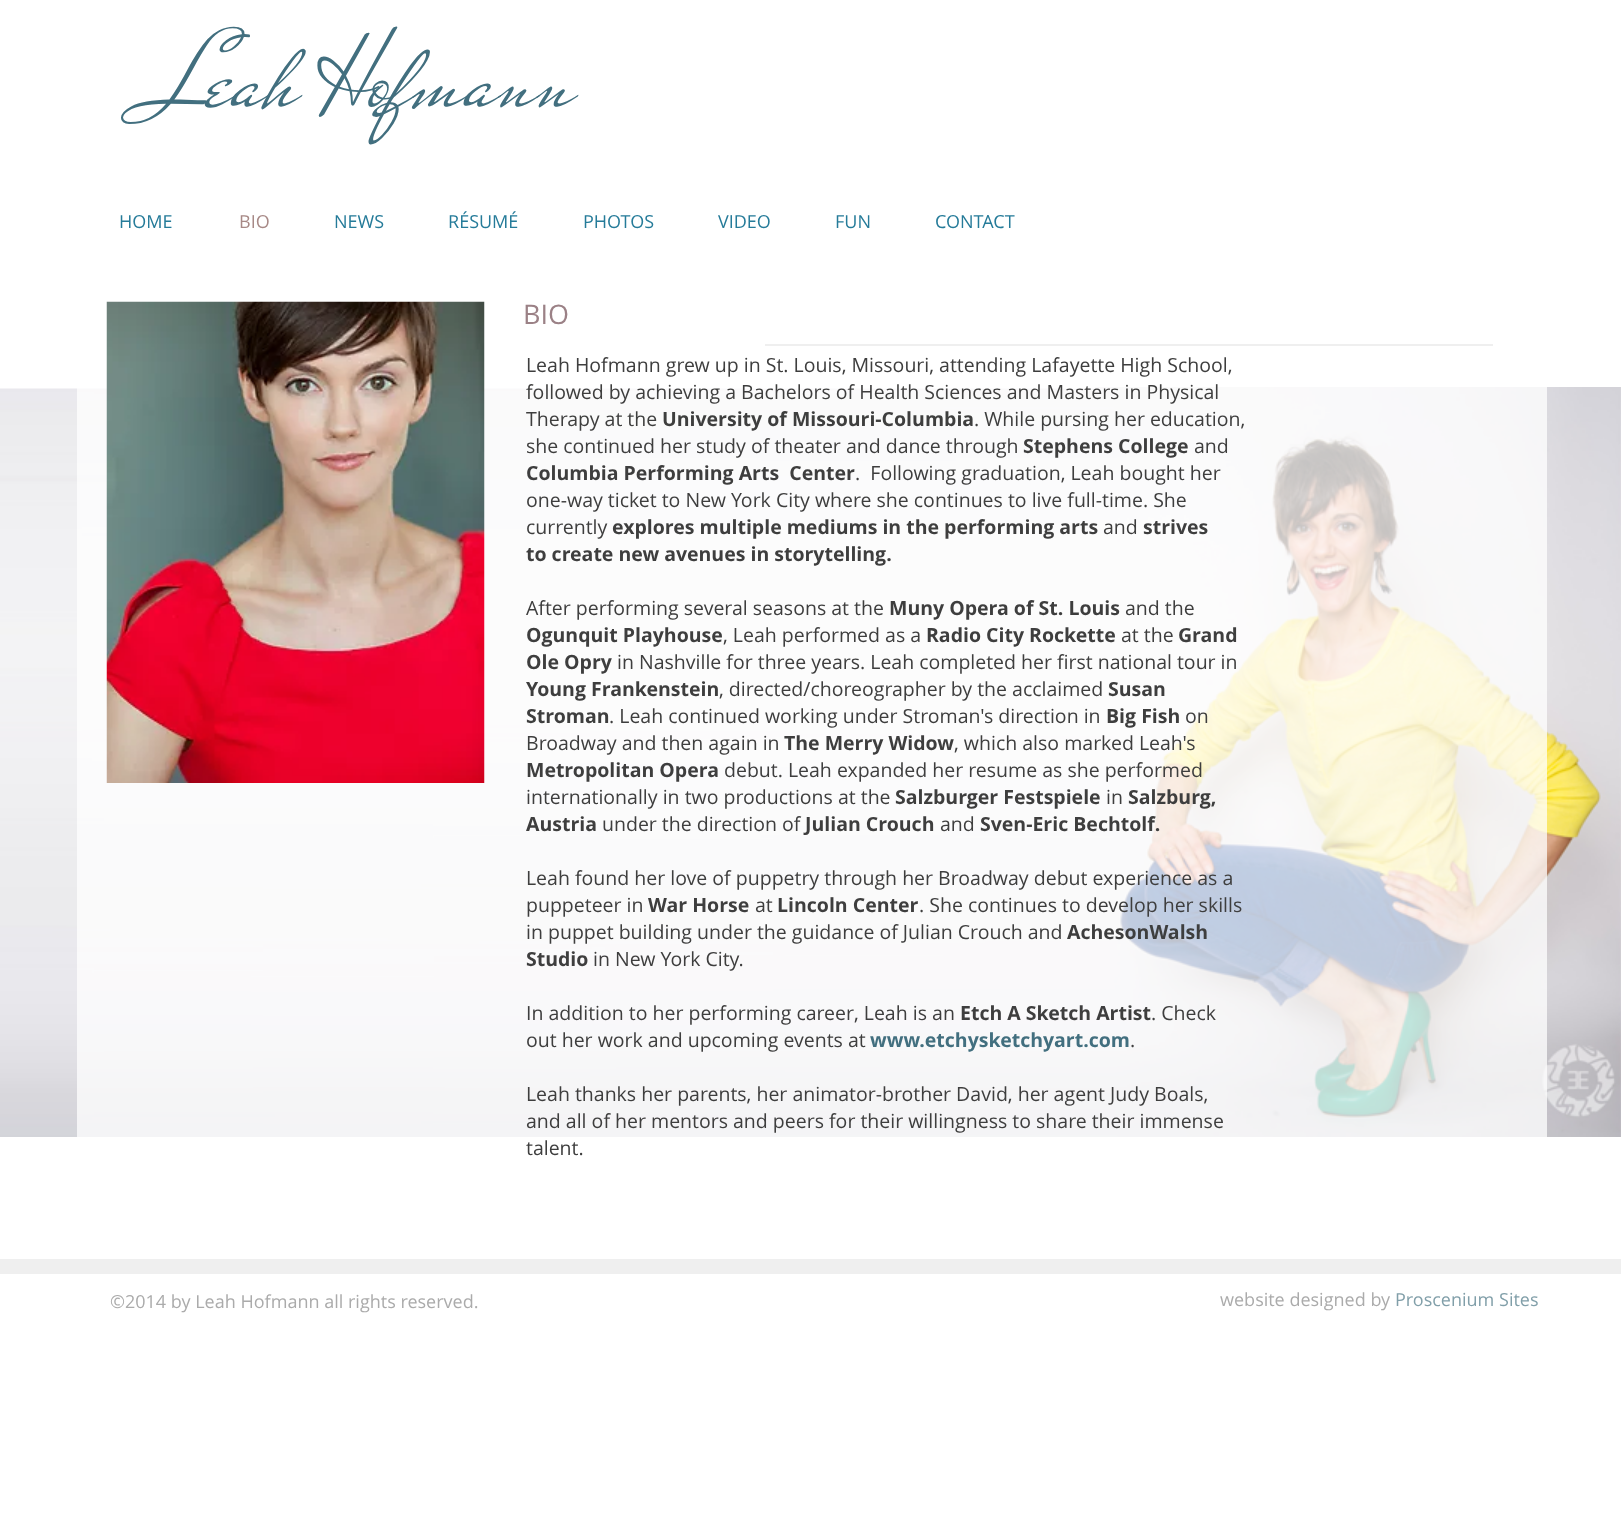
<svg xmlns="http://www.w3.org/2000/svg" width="1621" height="1522">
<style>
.a{font:108px Mr De Haviland;fill:#426f7f}
.b{font:18px Open Sans;fill:#257b99}
.c{font:18px Open Sans;fill:#a78986}
.d{font:27px Open Sans;fill:#9b8186}
.e{font:19.5px Open Sans;fill:#3e3e3e}
.f{font:bold 19.5px Open Sans;fill:#3e3e3e}
.g{font:bold 19.5px Open Sans;fill:#426f7f}
.h{font:18px Open Sans;fill:#ababab}
.i{font:18px Open Sans;fill:#819fa9}
</style>
<rect width="100%" height="100%" fill="#fff"/>
<image href="2.png" x="0" y="387" width="1621" height="750"/>
<image href="1.png" x="106" y="301" width="379" height="482"/>
<path fill="#efefef" d="M765 344h728v2H765z"/>
<path fill="#efefef" d="M0 1259h1621v15H0z"/>
<text class="a" x="154" y="105">Leah Hofmann</text>
<text class="b" x="119" y="228">HOME</text>
<text class="c" x="239" y="228">BIO</text>
<text class="b" x="334" y="228">NEWS</text>
<text class="b" x="448" y="228">RÉSUMÉ</text>
<text class="b" x="583" y="228">PHOTOS</text>
<text class="b" x="718" y="228">VIDEO</text>
<text class="b" x="835" y="228">FUN</text>
<text class="b" x="935" y="228">CONTACT</text>
<text class="d" x="523" y="324">BIO</text>
<text class="e" x="526" y="372">Leah Hofmann grew up in St. Louis, Missouri, attending Lafayette High School,</text>
<text class="e" x="526" y="399">followed by achieving a Bachelors of Health Sciences and Masters in Physical</text>
<text class="e" x="526" y="426">Therapy at the</text>
<text class="f" x="662" y="426">University of Missouri-Columbia</text>
<text class="e" x="974" y="426">. While pursing her education,</text>
<text class="e" x="526" y="453">she continued her study of theater and dance through</text>
<text class="f" x="1023" y="453">Stephens College</text>
<text class="e" x="1194" y="453">and</text>
<text class="f" xml:space="preserve" x="526" y="480">Columbia Performing Arts  Center</text>
<text class="e" xml:space="preserve" x="855" y="480">.  Following graduation, Leah bought her</text>
<text class="e" x="526" y="507">one-way ticket to New York City where she continues to live full-time. She</text>
<text class="e" x="526" y="534">currently</text>
<text class="f" x="612" y="534">explores multiple mediums in the performing arts</text>
<text class="e" x="1103" y="534">and</text>
<text class="f" x="1143" y="534">strives</text>
<text class="f" x="526" y="561">to create new avenues in storytelling.</text>
<text class="e" x="526" y="615">After performing several seasons at the</text>
<text class="f" x="889" y="615">Muny Opera of St. Louis</text>
<text class="e" x="1125" y="615">and the</text>
<text class="f" x="526" y="642">Ogunquit Playhouse</text>
<text class="e" x="723" y="642">, Leah performed as a</text>
<text class="f" x="926" y="642">Radio City Rockette</text>
<text class="e" x="1121" y="642">at the</text>
<text class="f" x="1178" y="642">Grand</text>
<text class="f" x="526" y="669">Ole Opry</text>
<text class="e" x="617" y="669">in Nashville for three years. Leah completed her first national tour in</text>
<text class="f" x="526" y="696">Young Frankenstein</text>
<text class="e" x="719" y="696">, directed/choreographer by the acclaimed</text>
<text class="f" x="1108" y="696">Susan</text>
<text class="f" x="526" y="723">Stroman</text>
<text class="e" x="609" y="723">. Leah continued working under Stroman's direction in</text>
<text class="f" x="1106" y="723">Big Fish</text>
<text class="e" x="1185" y="723">on</text>
<text class="e" x="526" y="750">Broadway and then again in</text>
<text class="f" x="784" y="750">The Merry Widow</text>
<text class="e" x="954" y="750">, which also marked Leah's</text>
<text class="f" x="526" y="777">Metropolitan Opera</text>
<text class="e" x="724" y="777">debut. Leah expanded her resume as she performed</text>
<text class="e" x="526" y="804">internationally in two productions at the</text>
<text class="f" x="895" y="804">Salzburger Festspiele</text>
<text class="e" x="1106" y="804">in</text>
<text class="f" x="1128" y="804">Salzburg,</text>
<text class="f" x="526" y="831">Austria</text>
<text class="e" x="602" y="831">under the direction of</text>
<text class="f" x="805" y="831">Julian Crouch</text>
<text class="e" x="940" y="831">and</text>
<text class="f" x="980" y="831">Sven-Eric Bechtolf.</text>
<text class="e" x="526" y="885">Leah found her love of puppetry through her Broadway debut experience as a</text>
<text class="e" x="526" y="912">puppeteer in</text>
<text class="f" x="648" y="912">War Horse</text>
<text class="e" x="755" y="912">at</text>
<text class="f" x="777" y="912">Lincoln Center</text>
<text class="e" x="919" y="912">. She continues to develop her skills</text>
<text class="e" x="526" y="939">in puppet building under the guidance of Julian Crouch and</text>
<text class="f" x="1067" y="939">AchesonWalsh</text>
<text class="f" x="526" y="966">Studio</text>
<text class="e" x="593" y="966">in New York City.</text>
<text class="e" x="526" y="1020">In addition to her performing career, Leah is an</text>
<text class="f" x="960" y="1020">Etch A Sketch Artist</text>
<text class="e" x="1151" y="1020">. Check</text>
<text class="e" x="526" y="1047">out her work and upcoming events at</text>
<text class="g" x="870" y="1047">www.etchysketchyart.com</text>
<text class="e" x="1130" y="1047">.</text>
<text class="e" x="526" y="1101">Leah thanks her parents, her animator-brother David, her agent Judy Boals,</text>
<text class="e" x="526" y="1128">and all of her mentors and peers for their willingness to share their immense</text>
<text class="e" x="526" y="1155">talent.</text>
<text class="h" x="110" y="1308">©2014 by Leah Hofmann all rights reserved.</text>
<text class="h" x="1220" y="1306">website designed by</text>
<text class="i" x="1395" y="1306">Proscenium Sites</text>
</svg>
